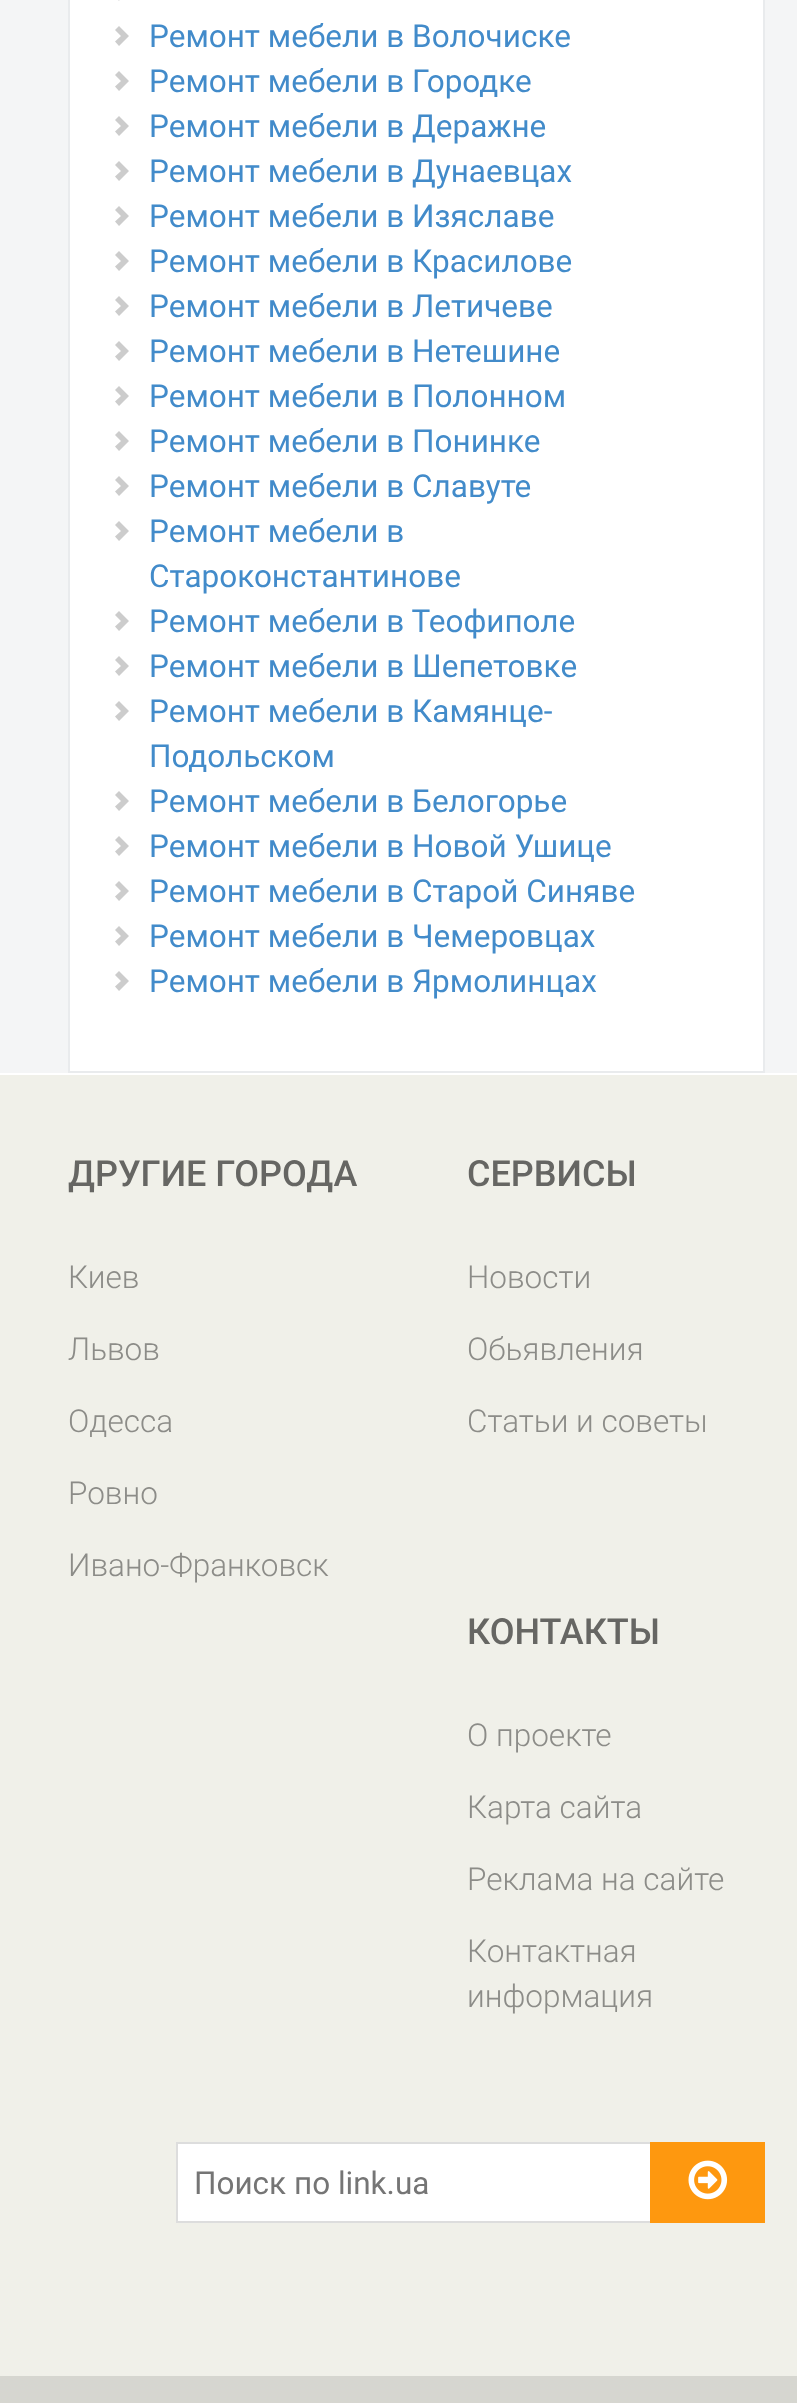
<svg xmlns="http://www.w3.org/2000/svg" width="797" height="2403">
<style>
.a{font:31.5px Roboto;fill:#428bca}
.b{font:500 36px Roboto;fill:#666663}
.c{font:300 31.5px Roboto;fill:#8c8c88}
.d{font:31.5px Roboto;fill:#757575}
</style>
<rect width="100%" height="100%" fill="#f4f5f6"/>
<path fill="#fff" stroke="#e9ebed" stroke-width="2" d="M69 -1h695v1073H69z"/>
<image href="1.png" x="118" y="0" width="2" height="1"/>
<path fill="#ccc" d="M115 41.5l6-5.5l-6-6l4-4l10 10l-10 10z"/>
<path fill="#ccc" d="M115 86.5l6-5.5l-6-6l4-4l10 10l-10 10z"/>
<path fill="#ccc" d="M115 131.5l6-5.5l-6-6l4-4l10 10l-10 10z"/>
<path fill="#ccc" d="M115 176.5l6-5.5l-6-6l4-4l10 10l-10 10z"/>
<path fill="#ccc" d="M115 221.5l6-5.5l-6-6l4-4l10 10l-10 10z"/>
<path fill="#ccc" d="M115 266.5l6-5.5l-6-6l4-4l10 10l-10 10z"/>
<path fill="#ccc" d="M115 311.5l6-5.5l-6-6l4-4l10 10l-10 10z"/>
<path fill="#ccc" d="M115 356.5l6-5.5l-6-6l4-4l10 10l-10 10z"/>
<path fill="#ccc" d="M115 401.5l6-5.5l-6-6l4-4l10 10l-10 10z"/>
<path fill="#ccc" d="M115 446.5l6-5.5l-6-6l4-4l10 10l-10 10z"/>
<path fill="#ccc" d="M115 491.5l6-5.5l-6-6l4-4l10 10l-10 10z"/>
<path fill="#ccc" d="M115 536.5l6-5.5l-6-6l4-4l10 10l-10 10z"/>
<path fill="#ccc" d="M115 626.5l6-5.5l-6-6l4-4l10 10l-10 10z"/>
<path fill="#ccc" d="M115 671.5l6-5.5l-6-6l4-4l10 10l-10 10z"/>
<path fill="#ccc" d="M115 716.5l6-5.5l-6-6l4-4l10 10l-10 10z"/>
<path fill="#ccc" d="M115 806.5l6-5.5l-6-6l4-4l10 10l-10 10z"/>
<path fill="#ccc" d="M115 851.5l6-5.5l-6-6l4-4l10 10l-10 10z"/>
<path fill="#ccc" d="M115 896.5l6-5.5l-6-6l4-4l10 10l-10 10z"/>
<path fill="#ccc" d="M115 941.5l6-5.5l-6-6l4-4l10 10l-10 10z"/>
<path fill="#ccc" d="M115 986.5l6-5.5l-6-6l4-4l10 10l-10 10z"/>
<path fill="#f0f0e9" d="M0 1075h797v1301H0z"/>
<path fill="#fff" d="M0 1073h797v2H0z"/>
<path fill="#fff" d="M178 2144h472v77H178z"/>
<path fill="none" stroke="#ddd" stroke-width="2" d="M177 2143h475v79H177z"/>
<path fill="#fe980f" d="M650 2142h115v81H650z"/>
<image href="2.png" x="688" y="2160" width="40" height="40"/>
<path fill="#d6d6d0" d="M0 2376h797v27H0z"/>
<text class="a" x="149" y="47">Ремонт мебели в Волочиске</text>
<text class="a" x="149" y="92">Ремонт мебели в Городке</text>
<text class="a" x="149" y="137">Ремонт мебели в Деражне</text>
<text class="a" x="149" y="182">Ремонт мебели в Дунаевцах</text>
<text class="a" x="149" y="227">Ремонт мебели в Изяславе</text>
<text class="a" x="149" y="272">Ремонт мебели в Красилове</text>
<text class="a" x="149" y="317">Ремонт мебели в Летичеве</text>
<text class="a" x="149" y="362">Ремонт мебели в Нетешине</text>
<text class="a" x="149" y="407">Ремонт мебели в Полонном</text>
<text class="a" x="149" y="452">Ремонт мебели в Понинке</text>
<text class="a" x="149" y="497">Ремонт мебели в Славуте</text>
<text class="a" x="149" y="542">Ремонт мебели в</text>
<text class="a" x="149" y="587">Староконстантинове</text>
<text class="a" x="149" y="632">Ремонт мебели в Теофиполе</text>
<text class="a" x="149" y="677">Ремонт мебели в Шепетовке</text>
<text class="a" x="149" y="722">Ремонт мебели в Камянце-</text>
<text class="a" x="149" y="767">Подольском</text>
<text class="a" x="149" y="812">Ремонт мебели в Белогорье</text>
<text class="a" x="149" y="857">Ремонт мебели в Новой Ушице</text>
<text class="a" x="149" y="902">Ремонт мебели в Старой Синяве</text>
<text class="a" x="149" y="947">Ремонт мебели в Чемеровцах</text>
<text class="a" x="149" y="992">Ремонт мебели в Ярмолинцах</text>
<text class="b" x="68" y="1186">ДРУГИЕ ГОРОДА</text>
<text class="c" x="68" y="1288">Киев</text>
<text class="c" x="68" y="1360">Львов</text>
<text class="c" x="68" y="1432">Одесса</text>
<text class="c" x="68" y="1504">Ровно</text>
<text class="c" x="68" y="1576">Ивано-Франковск</text>
<text class="b" x="467" y="1186">СЕРВИСЫ</text>
<text class="c" x="467" y="1288">Новости</text>
<text class="c" x="467" y="1360">Обьявления</text>
<text class="c" x="467" y="1432">Статьи и советы</text>
<text class="b" x="467" y="1644">КОНТАКТЫ</text>
<text class="c" x="467" y="1746">О проекте</text>
<text class="c" x="467" y="1818">Карта сайта</text>
<text class="c" x="467" y="1890">Реклама на сайте</text>
<text class="c" x="467" y="1962">Контактная</text>
<text class="c" x="467" y="2007">информация</text>
<text class="d" x="194" y="2194">Поиск по link.ua</text>
</svg>
